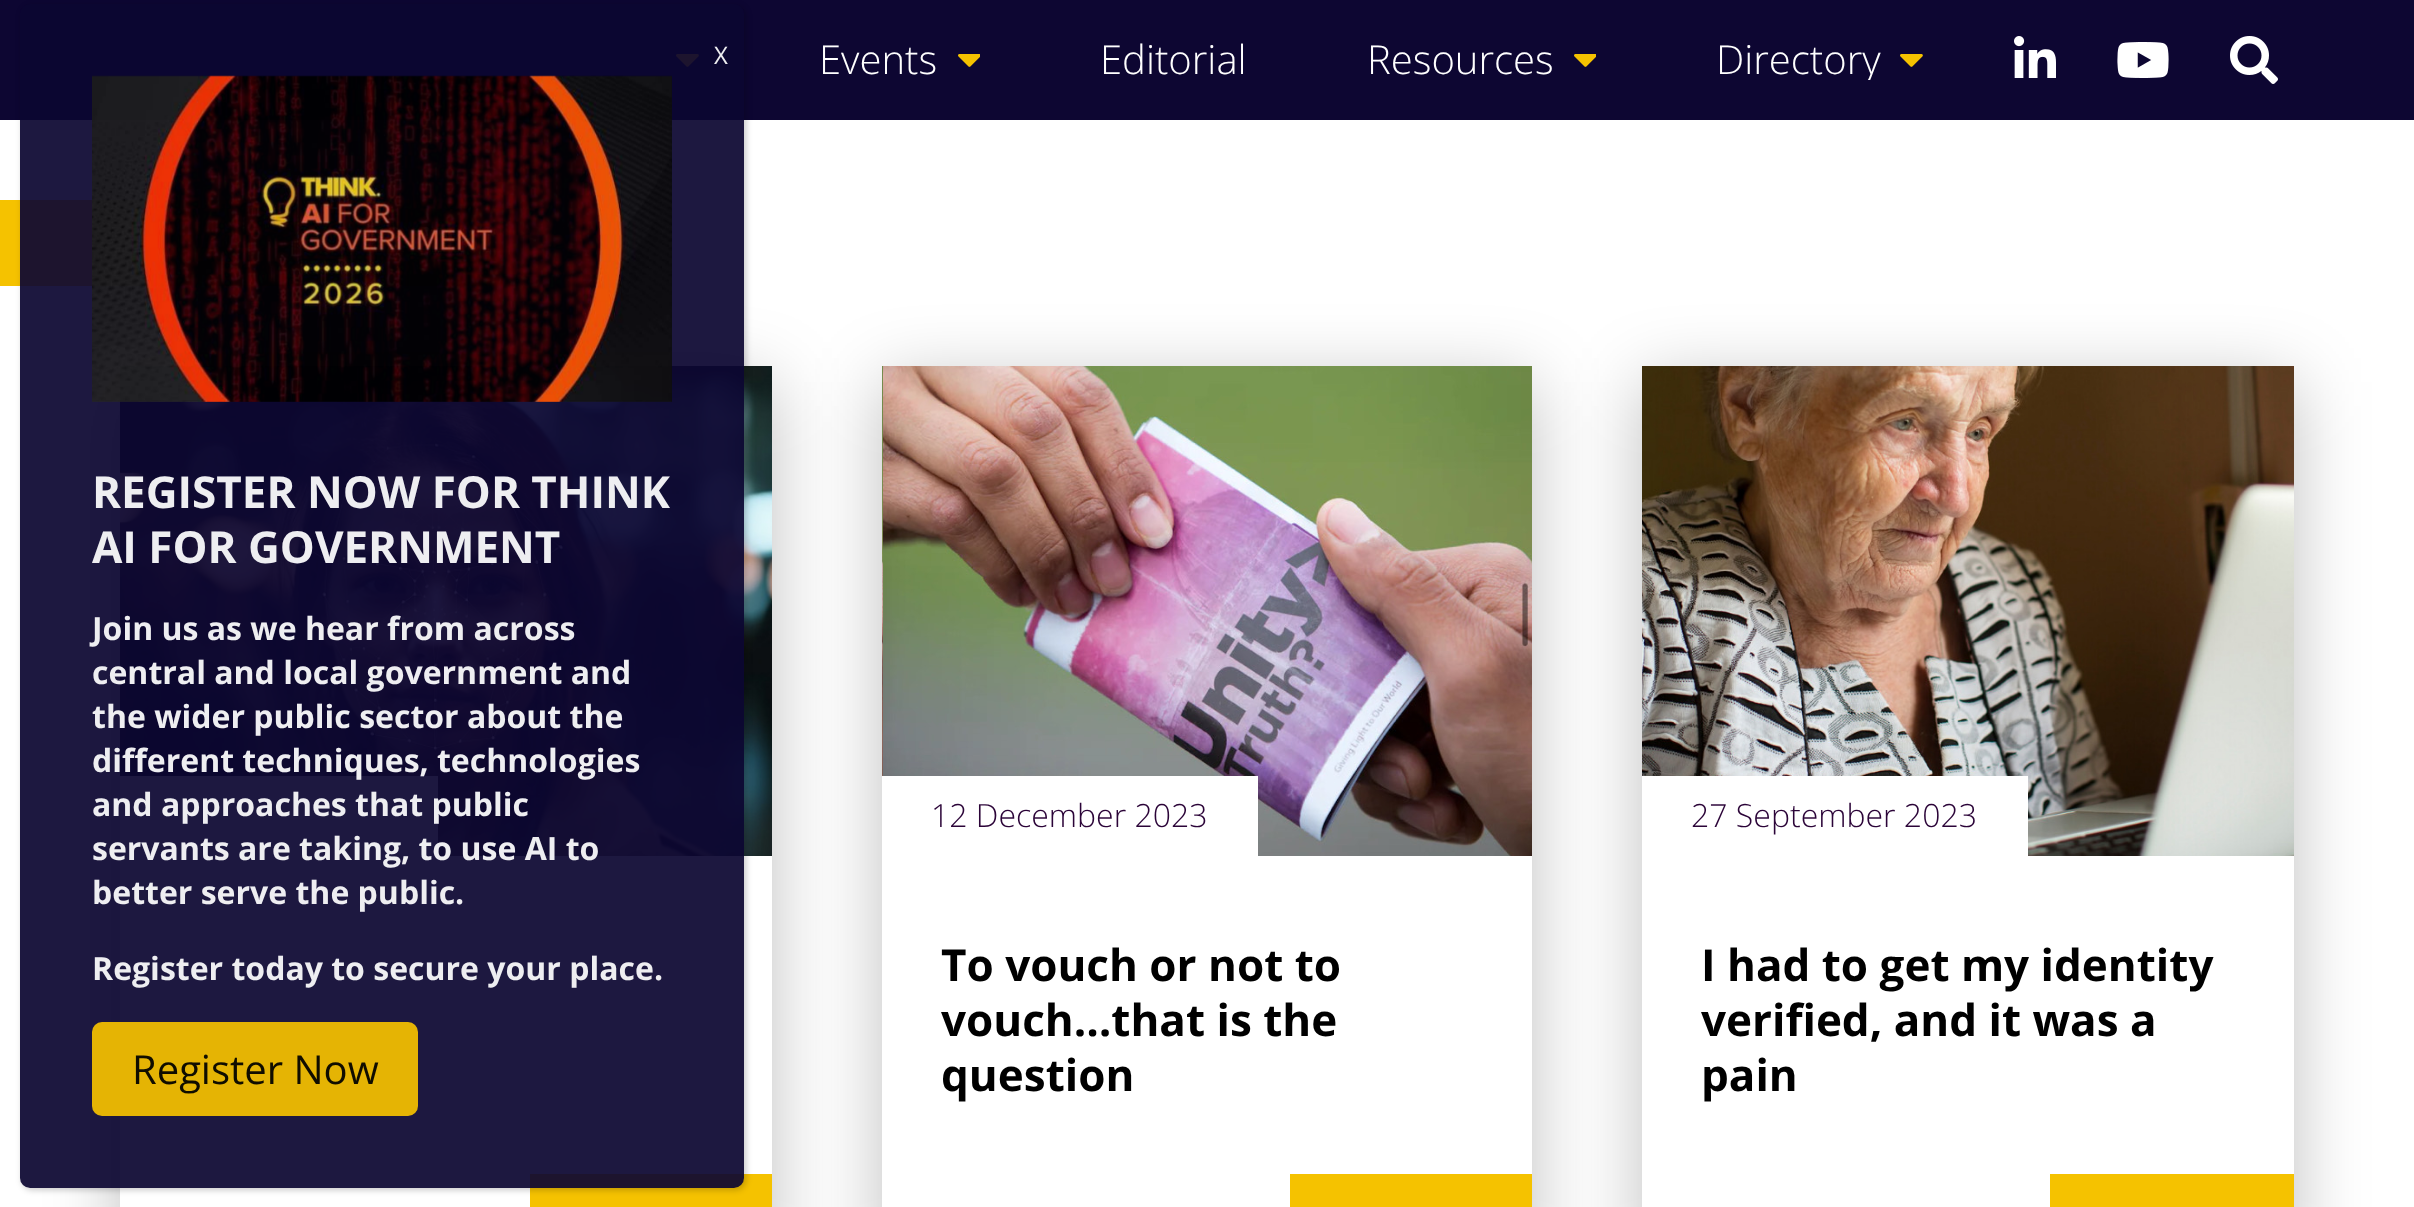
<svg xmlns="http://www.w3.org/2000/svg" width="2414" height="1207">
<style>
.a{font:24px Open Sans;fill:#eeeef1}
.b{font:bold 44px Open Sans;fill:#eeeef1}
.c{font:bold 32px Open Sans;fill:#eeeef1}
.d{font:40px Open Sans;fill:#100d00}
.e{font:300 40px Open Sans;fill:#fff}
.f{font:300 32px Open Sans;fill:#2b0438}
.g{font:bold 44px Open Sans;fill:#000}
</style>
<defs>
<clipPath id="clip1"><path d="M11 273h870v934h-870zm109 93h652v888h-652z" clip-rule="evenodd"/></clipPath>
<clipPath id="clip2"><path d="M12 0h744v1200h-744zm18 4h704c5.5 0 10 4.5 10 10v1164c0 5.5-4.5 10-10 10h-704c-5.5 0-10-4.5-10-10v-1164c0-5.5 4.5-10 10-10z" clip-rule="evenodd"/></clipPath>
<clipPath id="clip3"><path d="M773 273h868v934h-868zm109 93h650v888h-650z" clip-rule="evenodd"/></clipPath>
<clipPath id="clip4"><path d="M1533 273h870v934h-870zm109 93h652v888h-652z" clip-rule="evenodd"/></clipPath>
<clipPath id="clip5"><path d="M1716 40h208v40H1716z"/></clipPath>
</defs>
<rect width="100%" height="100%" fill="#fff"/>
<path fill="#0d0632" d="M0 0h2414v120H0z"/>
<image href="2.png" x="676" y="54" width="23" height="13"/>
<g clip-path="url(#clip1)">
<path fill="#00000040" filter="blur(36px)" d="M120 382h652v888H120z"/>
</g>
<path fill="#f5c200" d="M-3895 200h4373l31 86h-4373z"/>
<image href="7.png" x="120" y="366" width="652" height="490"/>
<path fill="#fff" d="M120 776h318v80H120z"/>
<path fill="#f5c200" d="M530 1174h242v33H530z"/>
<g clip-path="url(#clip2)">
<rect fill="#02020236" filter="blur(3px)" x="22" y="6" width="724" height="1184" rx="10"/>
</g>
<rect fill="#0c0632ed" x="20" y="4" width="724" height="1184" rx="10"/>
<image href="1.png" x="92" y="75" width="580" height="327"/>
<rect fill="#f4c100ed" x="92" y="1022" width="326" height="94" rx="10"/>
<image href="3.png" x="958" y="54" width="22" height="13"/>
<image href="3.png" x="1574" y="54" width="22" height="13"/>
<image href="2.png" x="1900" y="54" width="23" height="13"/>
<image href="4.png" x="2014" y="36" width="42" height="42"/>
<image href="5.png" x="2117" y="42" width="52" height="36"/>
<image href="6.png" x="2230" y="36" width="48" height="48"/>
<g clip-path="url(#clip3)">
<path fill="#00000040" filter="blur(36px)" d="M882 382h650v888H882z"/>
</g>
<image href="8.png" x="882" y="366" width="650" height="490"/>
<path fill="#fff" d="M882 776h376v80H882z"/>
<path fill="#f5c200" d="M1290 1174h242v33H1290z"/>
<g clip-path="url(#clip4)">
<path fill="#00000040" filter="blur(36px)" d="M1642 382h652v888H1642z"/>
</g>
<image href="9.png" x="1642" y="366" width="652" height="490"/>
<path fill="#fff" d="M1642 776h386v80H1642z"/>
<path fill="#f5c200" d="M2050 1174h244v33H2050z"/>
<text class="a" x="714" y="64">X</text>
<text class="b" x="92" y="508">REGISTER NOW FOR THINK</text>
<text class="b" x="92" y="563">AI FOR GOVERNMENT</text>
<text class="c" x="92" y="640">Join us as we hear from across</text>
<text class="c" x="92" y="684">central and local government and</text>
<text class="c" x="92" y="728">the wider public sector about the</text>
<text class="c" x="92" y="772">different techniques, technologies</text>
<text class="c" x="92" y="816">and approaches that public</text>
<text class="c" x="92" y="860">servants are taking, to use AI to</text>
<text class="c" x="92" y="904">better serve the public.</text>
<text class="c" x="92" y="980">Register today to secure your place.</text>
<text class="d" x="132" y="1084">Register Now</text>
<text class="e" x="819" y="74">Events</text>
<text class="e" x="1100" y="74">Editorial</text>
<text class="e" x="1367" y="74">Resources</text>
<g clip-path="url(#clip5)">
<text class="e" x="1716" y="74">Directory</text>
</g>
<text class="f" x="931" y="827">12 December 2023</text>
<text class="g" x="941" y="981">To vouch or not to</text>
<text class="g" x="941" y="1036">vouch…that is the</text>
<text class="g" x="941" y="1091">question</text>
<text class="f" x="1691" y="827">27 September 2023</text>
<text class="g" x="1701" y="981">I had to get my identity</text>
<text class="g" x="1701" y="1036">verified, and it was a</text>
<text class="g" x="1701" y="1091">pain</text>
</svg>
